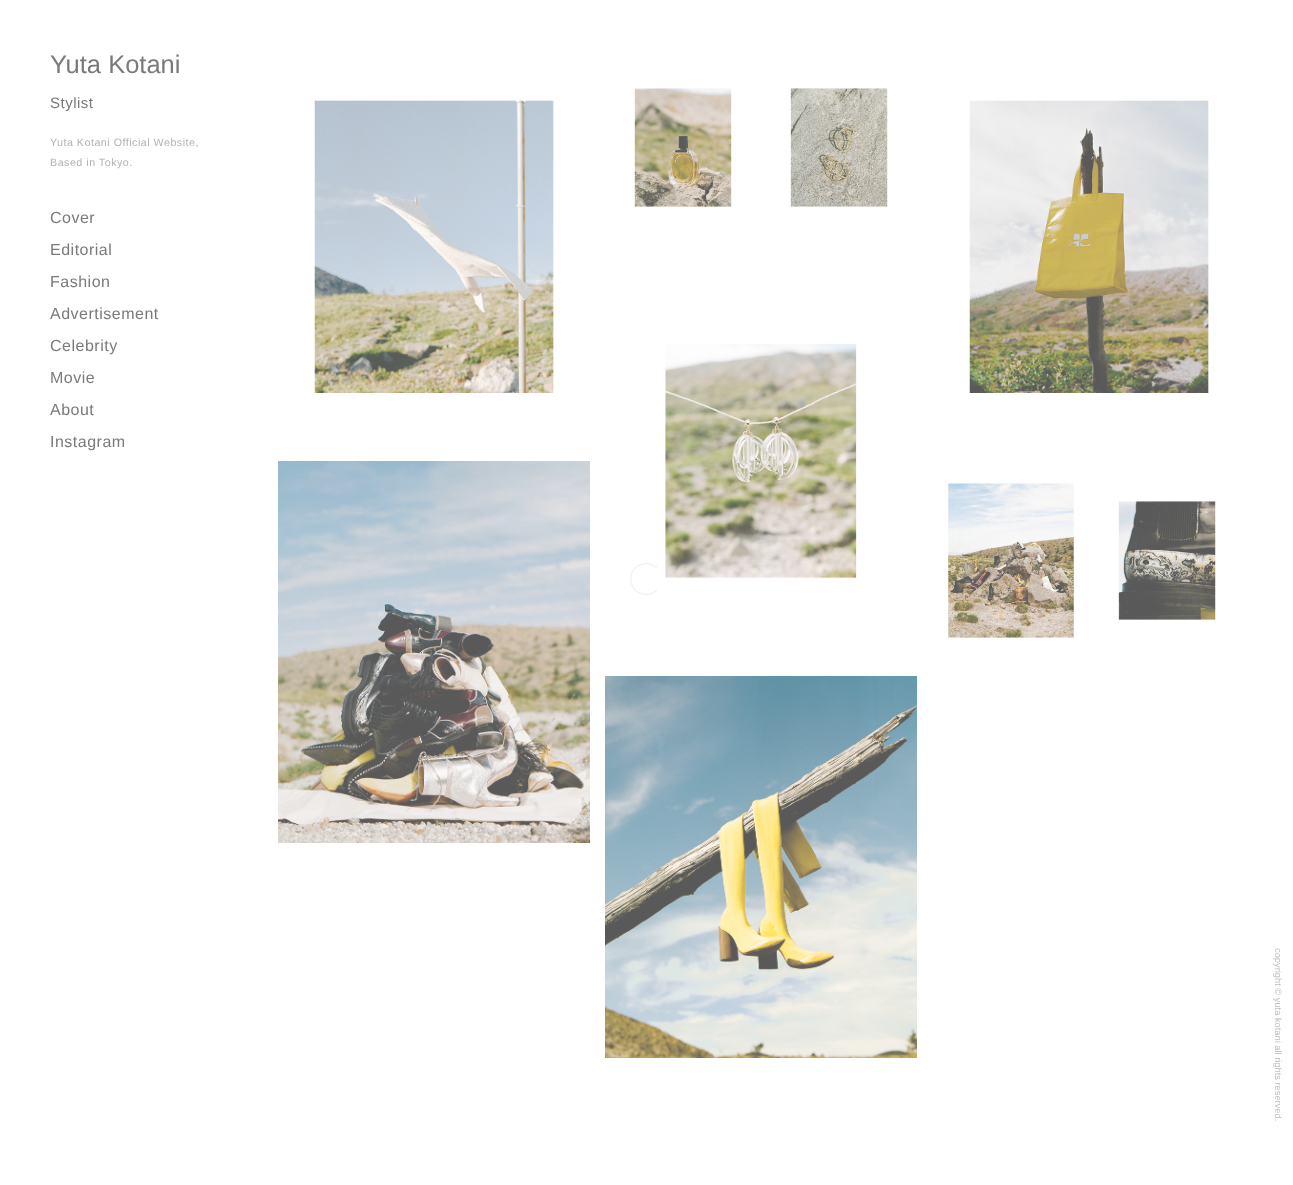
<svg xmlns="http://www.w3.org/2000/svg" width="1293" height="1185">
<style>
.a{font:25.5px Liberation Sans;fill:#7a7a7a}
.b{font:15px Liberation Sans;letter-spacing:0.5px;fill:#7a7a7a}
.c{font:10.7px Liberation Sans;letter-spacing:0.5px;fill:#b2b2b2}
.d{font:16px Liberation Sans;letter-spacing:0.5px;fill:#7a7a7a}
.e{font:9.3px Liberation Sans;fill:#bdbdbd}
</style>
<rect width="100%" height="100%" fill="#fff"/>
<image href="1.png" x="314" y="100" width="240" height="293"/>
<image href="2.png" x="634" y="88" width="254" height="120"/>
<image href="3.png" x="969" y="100" width="240" height="293"/>
<image href="4.png" x="278" y="461" width="312" height="382"/>
<image href="5.png" x="665" y="343" width="192" height="236"/>
<image href="6.png" x="948" y="482" width="268" height="156"/>
<image href="7.png" x="605" y="676" width="312" height="382"/>
<path fill="none" stroke="#ededed" d="M657 590c-3 3-7 4.5-11 4.5c-18.5 0-21-27-3-30.5c5-1 10.5 .5 14 4"/>
<text class="a" x="50" y="73">Yuta Kotani</text>
<text class="b" x="50" y="108">Stylist</text>
<text class="c" x="50" y="146">Yuta Kotani Official Website,</text>
<text class="c" x="50" y="166">Based in Tokyo.</text>
<text class="d" x="50" y="223">Cover</text>
<text class="d" x="50" y="255">Editorial</text>
<text class="d" x="50" y="287">Fashion</text>
<text class="d" x="50" y="319">Advertisement</text>
<text class="d" x="50" y="351">Celebrity</text>
<text class="d" x="50" y="383">Movie</text>
<text class="d" x="50" y="415">About</text>
<text class="d" x="50" y="447">Instagram</text>
<text class="e" x="1275" y="948" transform="rotate(90 1275 948)">copyright © yuta kotani all rights reserved.</text>
</svg>
